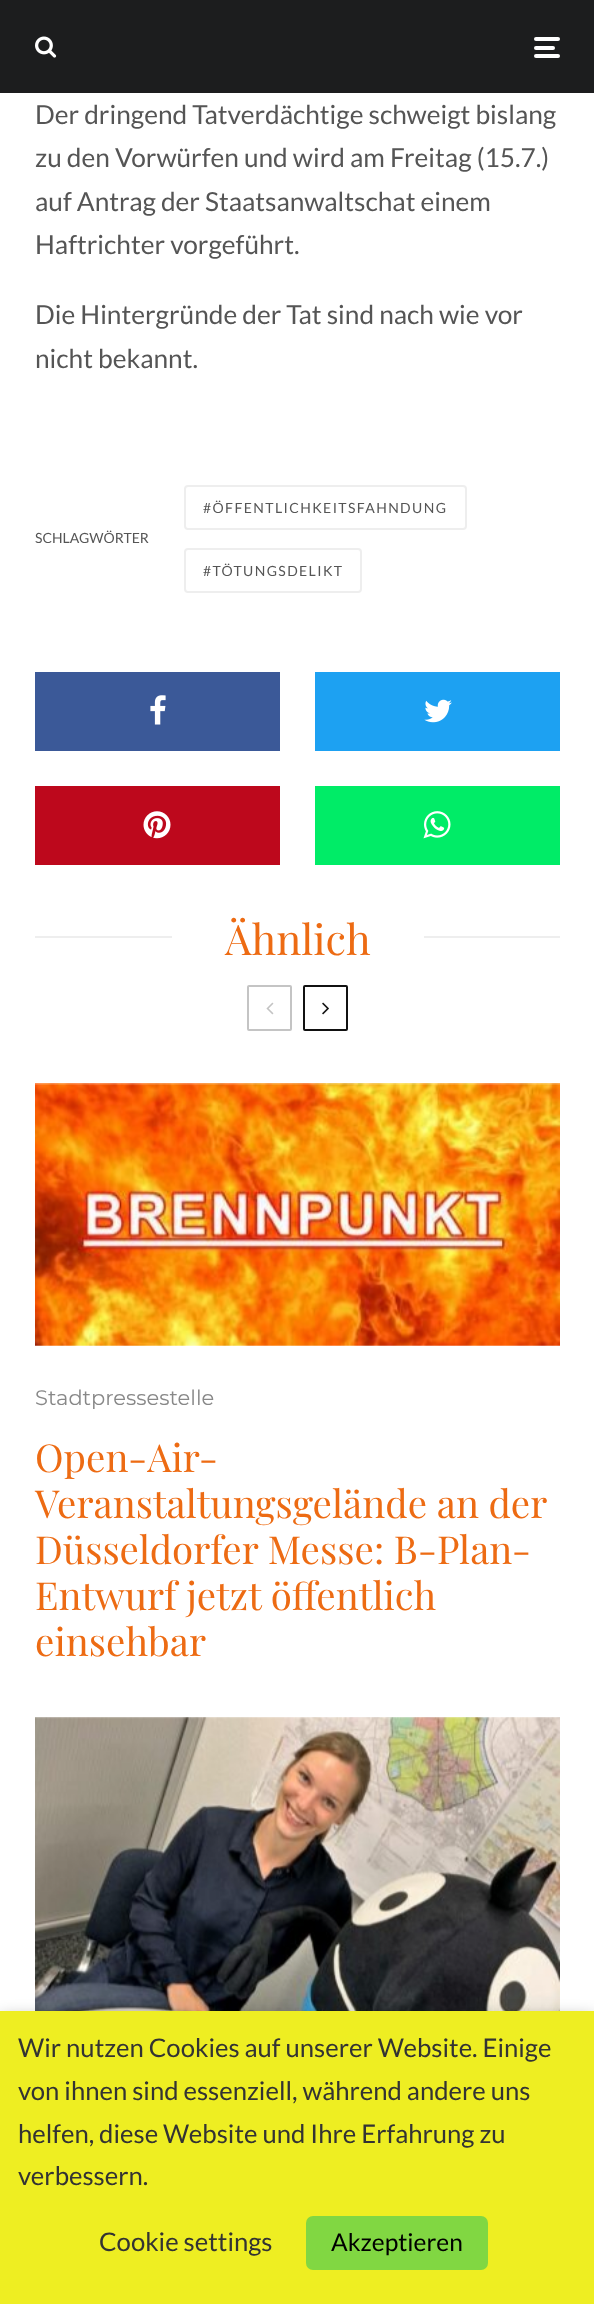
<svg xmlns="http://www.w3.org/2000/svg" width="594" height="2304">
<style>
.a{font:26.25px Lato;fill:#555}
.b{font:14px Lato;fill:#555}
.c{font:14px Lato;letter-spacing:1.4px;fill:#555}
.d{font:42px Playfair Display;fill:#ed6b13}
.e{font:21px Montserrat;fill:#888}
.f{font:38.5px Playfair Display;fill:#ed6b13}
.g{font:25.7px Lato;fill:#333}
.h{font:24.5px Lato;fill:#000}
</style>
<rect width="100%" height="100%" fill="#fff"/>
<path fill="#1c1d1e" d="M0 0h594v93H0z"/>
<image href="1.png" x="35" y="36" width="22" height="22"/>
<rect fill="#fff" x="534" y="46" width="21" height="4" rx="2"/>
<rect fill="#fff" x="534" y="37" width="26" height="4" rx="2"/>
<rect fill="#fff" x="534" y="54" width="26" height="4" rx="2"/>
<rect fill="none" stroke="#eee" stroke-width="2" x="185" y="486" width="281" height="43" rx="3"/>
<rect fill="none" stroke="#eee" stroke-width="2" x="185" y="549" width="176" height="43" rx="3"/>
<path fill="#3b5998" d="M35 672h245v79H35z"/>
<image href="2.png" x="150" y="695" width="16" height="30"/>
<path fill="#1da1f2" d="M315 672h245v79H315z"/>
<image href="3.png" x="424" y="699" width="28" height="24"/>
<path fill="#bd081c" d="M35 786h245v79H35z"/>
<image href="4.png" x="143" y="811" width="28" height="28"/>
<path fill="#00ec67" d="M315 786h245v79H315z"/>
<image href="5.png" x="423" y="811" width="28" height="28"/>
<path fill="#eee" d="M35 936h137v2H35z"/>
<path fill="#eee" d="M424 936h136v2H424z"/>
<rect fill="none" stroke="#c4c4c4" stroke-width="2" x="248" y="986" width="43" height="44" rx="1"/>
<image href="6.png" x="266" y="1002" width="8" height="13"/>
<rect fill="none" stroke="#111" stroke-width="2" x="304" y="986" width="43" height="44" rx="1"/>
<image href="7.png" x="322" y="1002" width="7" height="13"/>
<image href="8.png" x="35" y="1083" width="525" height="263"/>
<image href="9.png" x="35" y="1717" width="525" height="294"/>
<path fill="#00000080" filter="blur(9px)" d="M0 2020h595v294H0z"/>
<path fill="#ee2" d="M0 2011h594v293H0z"/>
<rect fill="#81d742" x="306" y="2216" width="182" height="54" rx="7"/>
<text class="a" x="35" y="124">Der dringend Tatverdächtige schweigt bislang</text>
<text class="a" x="35" y="167">zu den Vorwürfen und wird am Freitag (15.7.)</text>
<text class="a" x="35" y="211">auf Antrag der Staatsanwaltschat einem</text>
<text class="a" x="35" y="254">Haftrichter vorgeführt.</text>
<text class="a" x="35" y="324">Die Hintergründe der Tat sind nach wie vor</text>
<text class="a" x="35" y="368">nicht bekannt.</text>
<text class="b" x="35" y="543">SCHLAGWÖRTER</text>
<text class="c" x="203" y="513">#ÖFFENTLICHKEITSFAHNDUNG</text>
<text class="c" x="203" y="576">#TÖTUNGSDELIKT</text>
<text class="d" x="225" y="955">Ähnlich</text>
<text class="e" x="35" y="1405">Stadtpressestelle</text>
<text class="f" x="35" y="1472">Open-Air-</text>
<text class="f" x="35" y="1518">Veranstaltungsgelände an der</text>
<text class="f" x="35" y="1564">Düsseldorfer Messe: B-Plan-</text>
<text class="f" x="35" y="1610">Entwurf jetzt öffentlich</text>
<text class="f" x="35" y="1656">einsehbar</text>
<text class="g" x="18" y="2057">Wir nutzen Cookies auf unserer Website. Einige</text>
<text class="g" x="18" y="2100">von ihnen sind essenziell, während andere uns</text>
<text class="g" x="18" y="2143">helfen, diese Website und Ihre Erfahrung zu</text>
<text class="g" x="18" y="2185">verbessern.</text>
<text class="g" x="99" y="2251">Cookie settings</text>
<text class="h" x="331" y="2251">Akzeptieren</text>
</svg>
